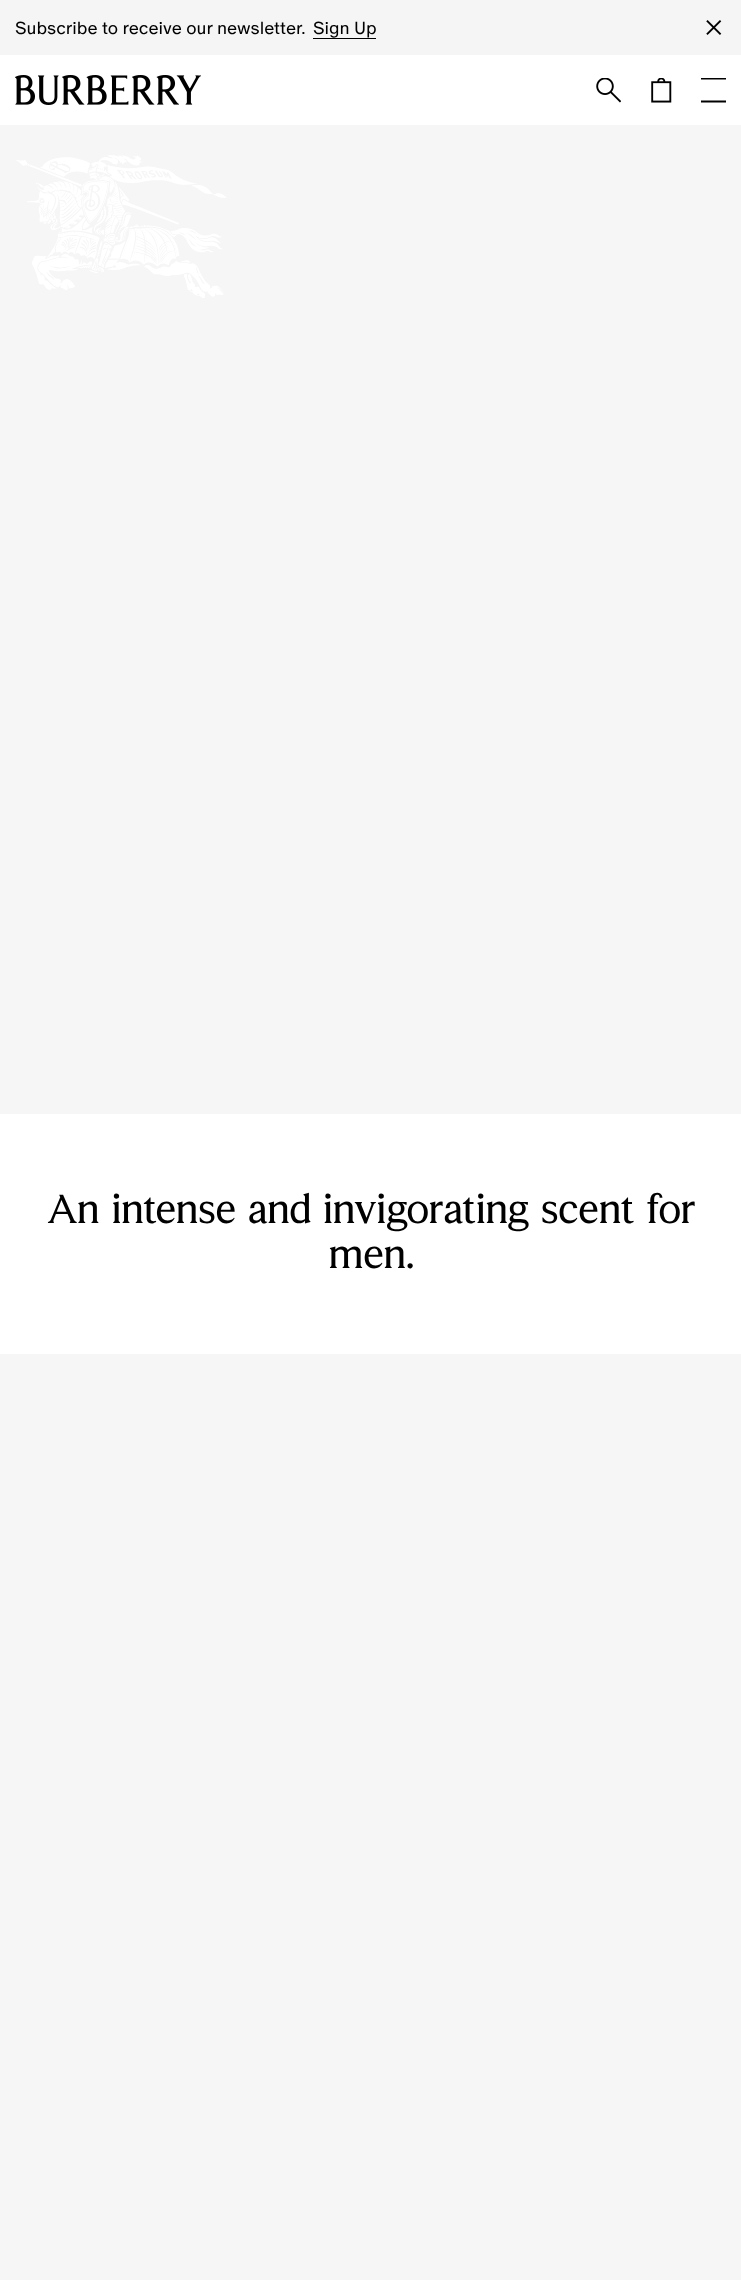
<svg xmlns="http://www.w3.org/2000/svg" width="741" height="2280">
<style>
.a{font:17.5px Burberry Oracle;fill:#000}
.b{font:40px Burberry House;letter-spacing:-0.6px;fill:#000}
</style>
<defs>
<clipPath id="clip1"><path d="M701 78h25v25H701z"/></clipPath>
</defs>
<rect width="100%" height="100%" fill="#fff"/>
<path fill="#f5f5f5" d="M0 0h741v55H0z"/>
<path fill="#000" d="M313 38h63v1H313z"/>
<image href="1.png" x="706" y="20" width="16" height="15"/>
<image href="2.png" x="15" y="75" width="186" height="30"/>
<image href="3.png" x="596" y="78" width="25" height="25"/>
<image href="4.png" x="651" y="78" width="21" height="25"/>
<g clip-path="url(#clip1)">
<path fill="#000" fill-rule="evenodd" d="M701 79.5h25v-2h-25zm0 23h25v-2h-25z"/>
</g>
<path fill="#f6f6f6" d="M0 125h741v989H0z"/>
<image href="5.png" x="16" y="155" width="211" height="143"/>
<path fill="#f6f6f6" d="M0 1354h741v926H0z"/>
<text class="a" x="15" y="34">Subscribe to receive our newsletter.</text>
<text class="a" x="313" y="34">Sign Up</text>
<text class="b" x="47" y="1223">An intense and invigorating scent for</text>
<text class="b" x="328" y="1268">men.</text>
</svg>
